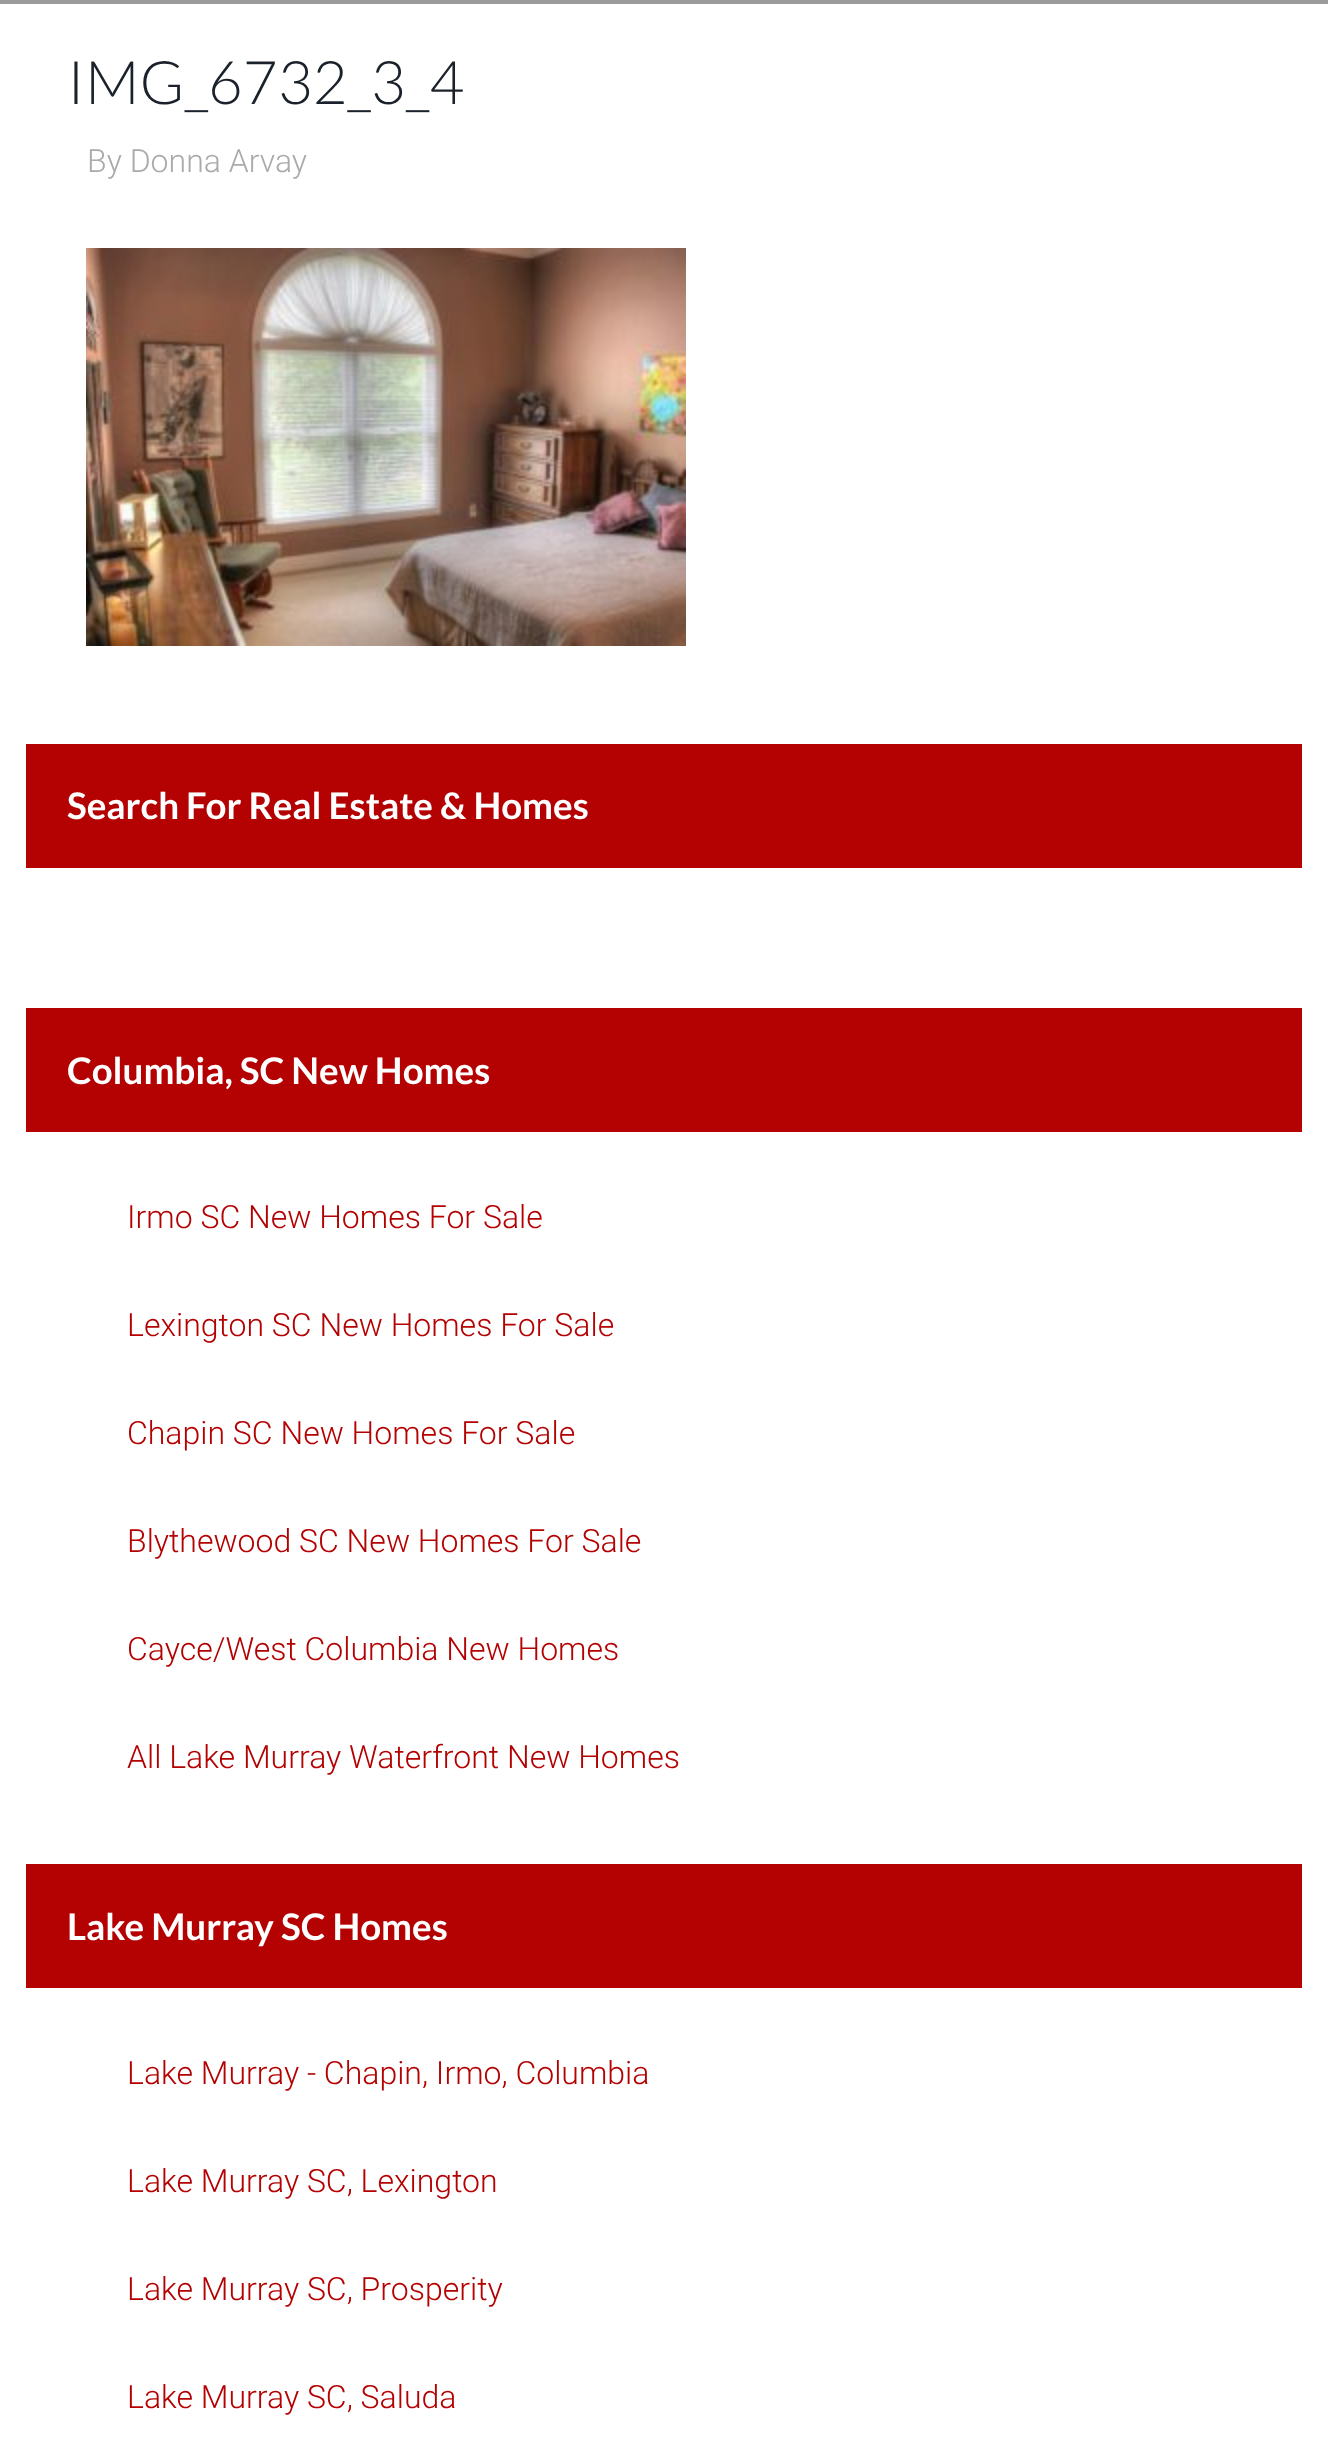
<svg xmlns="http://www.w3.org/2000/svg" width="1328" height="2455">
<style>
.a{font:300 60px Lato;fill:#1a212b}
.b{font:300 32px Roboto;fill:#aaa}
.c{font:bold 36.75px Lato;fill:#fff}
.d{font:300 32px Roboto;fill:#b40101}
</style>
<rect width="100%" height="100%" fill="#fff"/>
<path fill="#9b9b9b" d="M0 0h1328v4H0z"/>
<image href="1.png" x="86" y="248" width="600" height="398"/>
<path fill="#b40101" d="M26 744h1276v124H26z"/>
<path fill="#b40101" d="M26 1008h1276v124H26z"/>
<path fill="#b40101" d="M26 1864h1276v124H26z"/>
<text class="a" x="67" y="104">IMG_6732_3_4</text>
<text class="b" x="87" y="172">By Donna Arvay</text>
<text class="c" x="67" y="819">Search For Real Estate &amp; Homes</text>
<text class="c" x="67" y="1084">Columbia, SC New Homes</text>
<text class="d" x="127" y="1228">Irmo SC New Homes For Sale</text>
<text class="d" x="127" y="1336">Lexington SC New Homes For Sale</text>
<text class="d" x="127" y="1444">Chapin SC New Homes For Sale</text>
<text class="d" x="127" y="1552">Blythewood SC New Homes For Sale</text>
<text class="d" x="127" y="1660">Cayce/West Columbia New Homes</text>
<text class="d" x="127" y="1768">All Lake Murray Waterfront New Homes</text>
<text class="c" x="67" y="1940">Lake Murray SC Homes</text>
<text class="d" x="127" y="2084">Lake Murray - Chapin, Irmo, Columbia</text>
<text class="d" x="127" y="2192">Lake Murray SC, Lexington</text>
<text class="d" x="127" y="2300">Lake Murray SC, Prosperity</text>
<text class="d" x="127" y="2408">Lake Murray SC, Saluda</text>
</svg>
